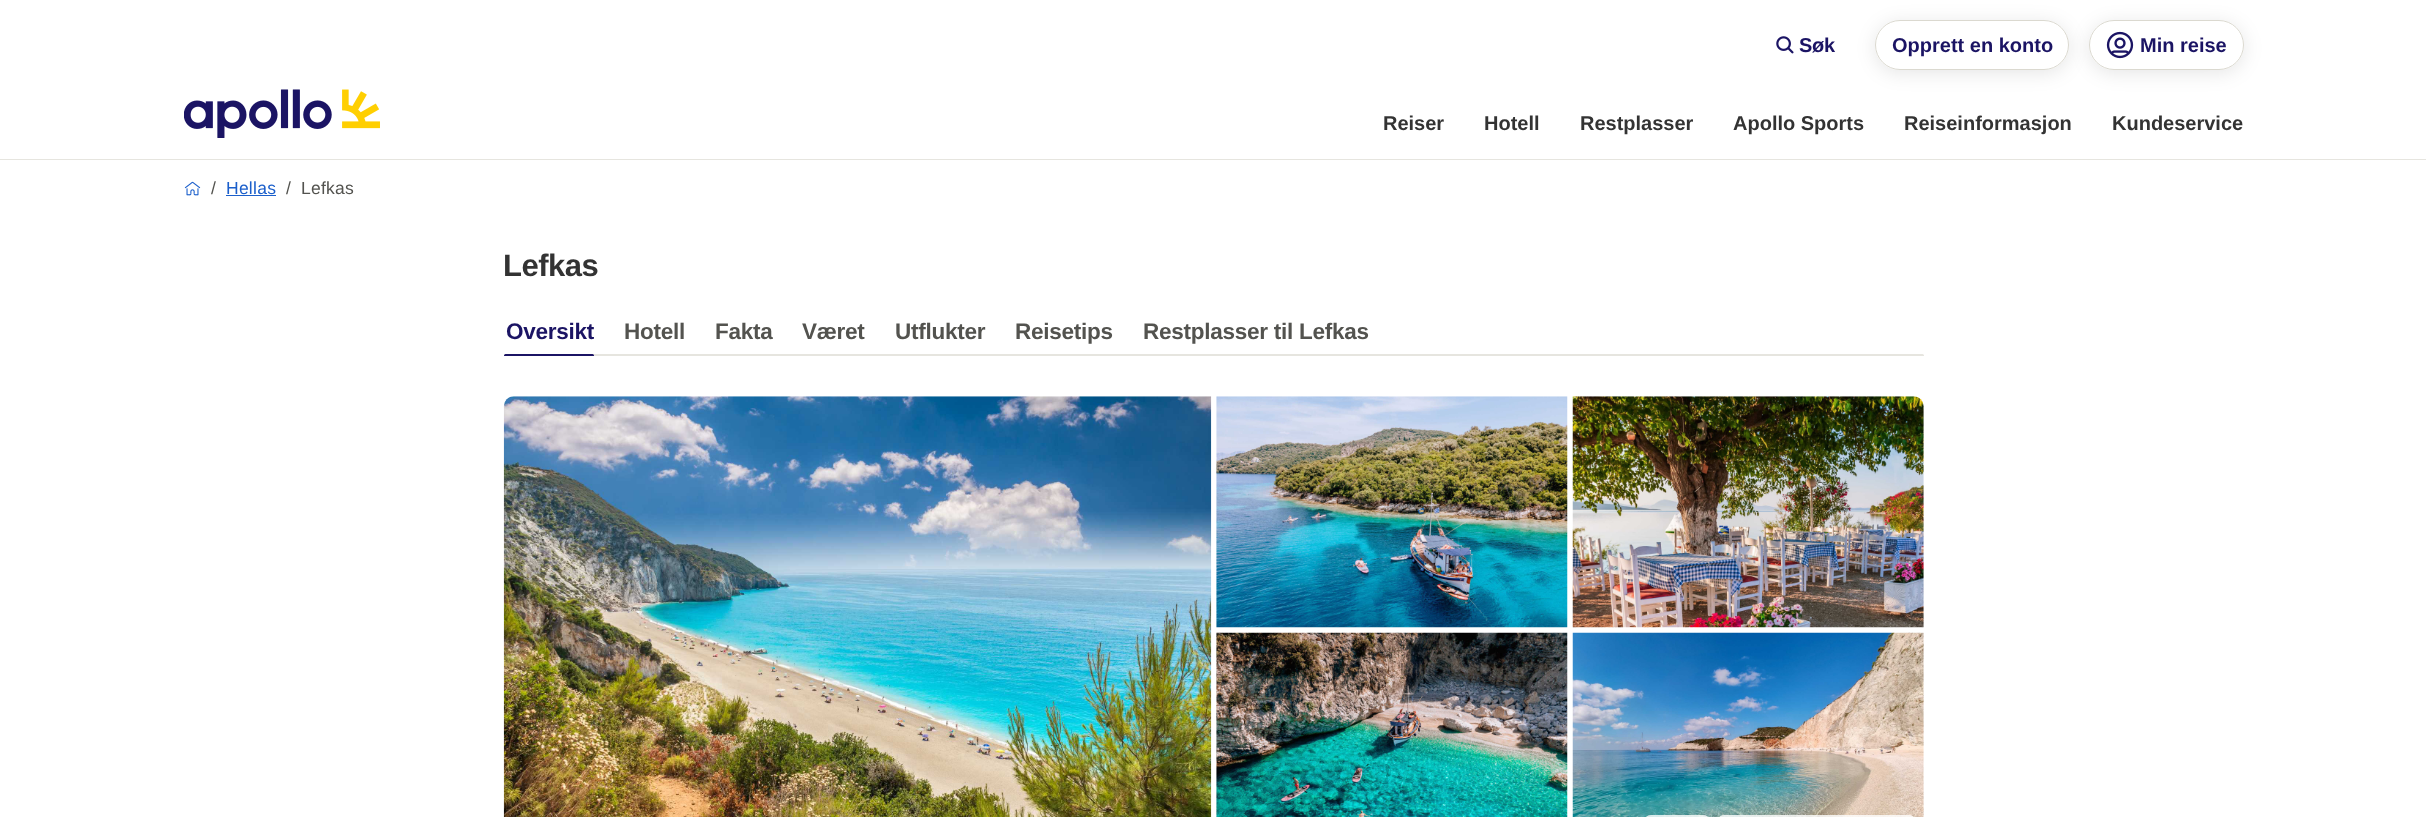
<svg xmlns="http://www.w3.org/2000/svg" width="2426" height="817">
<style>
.a{font:bold 20px Liberation Sans;letter-spacing:-0.25px;fill:#1b1464}
.b{font:bold 20px Liberation Sans;fill:#1b1464}
.c{font:bold 20px Liberation Sans;fill:#333}
.d{font:17.5px Liberation Sans;letter-spacing:0.25px;fill:#53534f}
.e{font:17.5px Liberation Sans;letter-spacing:0.25px;fill:#1b5fcb}
.f{font:bold 31px Liberation Sans;letter-spacing:-0.5px;fill:#333}
.g{font:bold 22.5px Liberation Sans;letter-spacing:-0.25px;fill:#1b1464}
.h{font:bold 22.5px Liberation Sans;letter-spacing:-0.25px;fill:#53534f}
</style>
<defs>
<clipPath id="clip1"><path d="M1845 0h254v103h-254zm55 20h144c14 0 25 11 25 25c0 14-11 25-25 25h-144c-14 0-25-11-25-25c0-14 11-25 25-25z" clip-rule="evenodd"/></clipPath>
<clipPath id="clip2"><path d="M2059 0h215v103h-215zm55 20h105c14 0 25 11 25 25c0 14-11 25-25 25h-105c-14 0-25-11-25-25c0-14 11-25 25-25z" clip-rule="evenodd"/></clipPath>
<clipPath id="clip3"><path d="M504 314h1420v42H504z"/></clipPath>
</defs>
<rect width="100%" height="100%" fill="#fff"/>
<image href="1.png" x="184" y="89" width="196" height="49"/>
<image href="2.png" x="1776" y="36" width="18" height="18"/>
<g clip-path="url(#clip1)">
<rect fill="#0000001a" filter="blur(9.5px)" x="1875" y="23" width="194" height="50" rx="25"/>
</g>
<rect fill="none" stroke="#dbd9d0" x="1875.5" y="20.5" width="193" height="49" rx="24.5"/>
<g clip-path="url(#clip2)">
<rect fill="#0000001a" filter="blur(9.5px)" x="2089" y="23" width="155" height="50" rx="25"/>
</g>
<rect fill="none" stroke="#dbd9d0" x="2089.5" y="20.5" width="154" height="49" rx="24.5"/>
<image href="3.png" x="2106" y="31" width="28" height="28"/>
<path fill="#e6e5df" d="M0 159h2426v1H0z"/>
<image href="4.png" x="184" y="181" width="17" height="15"/>
<path fill="#1b5fcb" d="M226 195h50v1H226z"/>
<g clip-path="url(#clip3)">
<rect fill="#e6e5df" x="514" y="354" width="1410" height="3" rx="1.5"/>
<rect fill="#1b1464" x="504" y="354" width="90" height="3" rx="1.5"/>
</g>
<image href="5.png" x="503" y="396" width="709" height="421"/>
<image href="6.png" x="1216" y="396" width="352" height="232"/>
<image href="7.png" x="1572" y="396" width="352" height="232"/>
<image href="8.png" x="1216" y="632" width="352" height="185"/>
<image href="9.png" x="1572" y="632" width="352" height="185"/>
<rect fill="#ffffffcc" x="1645" y="815" width="64" height="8" rx="6"/>
<rect fill="#ffffffcc" x="1719" y="815" width="195" height="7" rx="5"/>
<text class="a" x="1799" y="52">Søk</text>
<text class="b" x="1892" y="52">Opprett en konto</text>
<text class="b" x="2140" y="52">Min reise</text>
<text class="c" x="1383" y="130">Reiser</text>
<text class="c" x="1484" y="130">Hotell</text>
<text class="c" x="1580" y="130">Restplasser</text>
<text class="c" x="1733" y="130">Apollo Sports</text>
<text class="c" x="1904" y="130">Reiseinformasjon</text>
<text class="c" x="2112" y="130">Kundeservice</text>
<text class="d" x="211" y="194">/</text>
<text class="e" x="226" y="194">Hellas</text>
<text class="d" x="286" y="194">/</text>
<text class="d" x="301" y="194">Lefkas</text>
<text class="f" x="503" y="276">Lefkas</text>
<text class="g" x="506" y="339">Oversikt</text>
<text class="h" x="624" y="339">Hotell</text>
<text class="h" x="715" y="339">Fakta</text>
<text class="h" x="802" y="339">Været</text>
<text class="h" x="895" y="339">Utflukter</text>
<text class="h" x="1015" y="339">Reisetips</text>
<text class="h" x="1143" y="339">Restplasser til Lefkas</text>
</svg>
